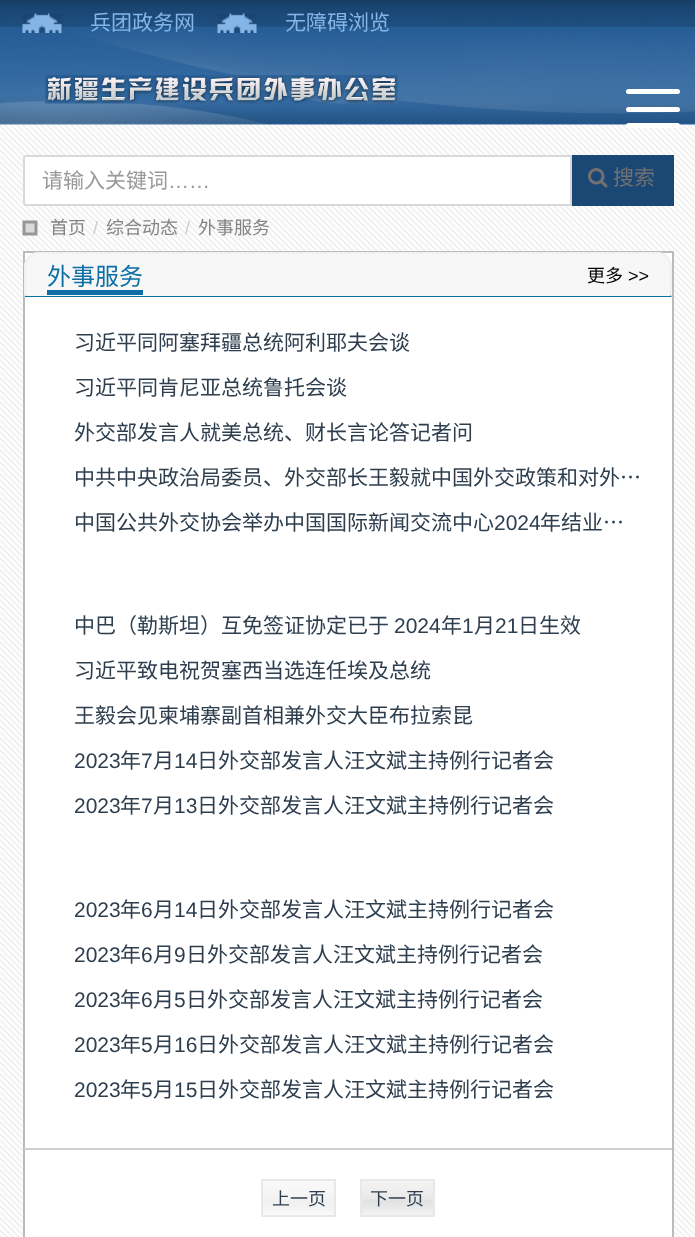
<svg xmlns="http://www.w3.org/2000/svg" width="695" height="1237">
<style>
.a{font:21px Noto Sans CJK SC;fill:#85b5e6}
.b{font:21px Noto Sans CJK SC;fill:#999}
.c{font:21px Liberation Sans;fill:#999}
.d{font:21px Noto Sans CJK SC;fill:#717171}
.e{font:18px Noto Sans CJK SC;fill:#848484}
.f{font:18px Liberation Sans;fill:#ccc}
.g{font:24px Noto Sans CJK SC;fill:#0d6fa6}
.h{font:18px Noto Sans CJK SC;fill:#030303}
.i{font:18px Liberation Sans;fill:#030303}
.j{font:21px Noto Sans CJK SC;fill:#2e3e4e}
.k{font:21px Liberation Sans;fill:#2e3e4e}
.l{font:18px Noto Sans CJK SC;fill:#2e3e4e}
</style>
<rect width="100%" height="100%" fill="#fff"/>
<image href="1.png" x="0" y="124" width="695" height="1113"/>
<image href="2.png" x="0" y="0" width="695" height="125"/>
<image href="3.png" x="22" y="13" width="40" height="20"/>
<image href="4.png" x="217" y="13" width="40" height="20"/>
<image href="5.png" x="45" y="75" width="353" height="29"/>
<rect fill="#fff" x="626" y="89" width="54" height="5" rx="2.5"/>
<rect fill="#fff" x="626" y="107" width="54" height="5" rx="2.5"/>
<rect fill="#fff" x="626" y="123" width="54" height="5" rx="2.5"/>
<path fill="#fff" stroke="#d9d9d9" stroke-width="2" d="M26 156h545v49h-545c-1 0-2-1-2-2v-45c0-1 1-2 2-2z"/>
<path fill="#1b4775" d="M572 155h102v51H572z"/>
<image href="6.png" x="588" y="168" width="20" height="20"/>
<image href="7.png" x="22" y="220" width="16" height="16"/>
<path fill="#fff" stroke="#bbbbb9" stroke-width="2" d="M24 252h649v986H24z"/>
<path fill="#f7f7f7" d="M39 252h618c8.5 0 15 6.5 15 15v30h-648v-30c0-8.5 6.5-15 15-15z"/>
<path fill="#f1f1f1" d="M39 252c-4 0-8 2-11 4l2 2c2-2 6-4 9-4h618c3 0 7 2 9 4l2-2c-3-2-7-4-11-4z"/>
<path fill="#f1f1f1" d="M672 297v-30c0-4-2-8-4-11l-2 2c2 2 4 6 4 9v28z"/>
<path fill="#0d6fa6" d="M672 297l-2-2v1h-644v-1l-2 2z"/>
<path fill="#f1f1f1" d="M24 297l2-2v-28c0-3 2-7 4-9l-2-2c-2 3-4 7-4 11z"/>
<path fill="#0d6fa6" d="M47 290h96v5H47z"/>
<path fill="#cfcfcf" d="M24 1148h648v2H24z"/>
<image href="8.png" x="263" y="1181" width="71" height="34"/>
<path fill="none" stroke="#e8e8e8" stroke-width="2" d="M262 1180h73v36H262z"/>
<image href="9.png" x="362" y="1181" width="71" height="34"/>
<path fill="none" stroke="#e8e8e8" stroke-width="2" d="M361 1180h73v36H361z"/>
<text class="a" x="90" y="30">兵团政务网</text>
<text class="a" x="285" y="30">无障碍浏览</text>
<text class="b" x="42" y="188">请输入关键词</text>
<text class="c" x="168" y="188">……</text>
<text class="d" x="613" y="185">搜索</text>
<text class="e" x="50" y="234">首页</text>
<text class="f" x="93" y="234">/</text>
<text class="e" x="106" y="234">综合动态</text>
<text class="f" x="185" y="234">/</text>
<text class="e" x="198" y="234">外事服务</text>
<text class="g" x="47" y="285">外事服务</text>
<text class="h" x="587" y="282">更多</text>
<text class="i" x="628" y="282">&gt;&gt;</text>
<text class="j" x="74" y="350">习近平同阿塞拜疆总统阿利耶夫会谈</text>
<text class="j" x="74" y="395">习近平同肯尼亚总统鲁托会谈</text>
<text class="j" x="74" y="440">外交部发言人就美总统、财长言论答记者问</text>
<text class="j" x="74" y="485">中共中央政治局委员、外交部长王毅就中国外交政策和对外…</text>
<text class="j" x="74" y="530">中国公共外交协会举办中国国际新闻交流中心</text>
<text class="k" x="494" y="530">2024</text>
<text class="j" x="540" y="530">年结业…</text>
<text class="j" x="74" y="633">中巴（勒斯坦）互免签证协定已于</text>
<text class="k" x="394" y="633">2024</text>
<text class="j" x="441" y="633">年</text>
<text class="k" x="462" y="633">1</text>
<text class="j" x="474" y="633">月</text>
<text class="k" x="495" y="633">21</text>
<text class="j" x="518" y="633">日生效</text>
<text class="j" x="74" y="678">习近平致电祝贺塞西当选连任埃及总统</text>
<text class="j" x="74" y="723">王毅会见柬埔寨副首相兼外交大臣布拉索昆</text>
<text class="k" x="74" y="768">2023</text>
<text class="j" x="120" y="768">年</text>
<text class="k" x="141" y="768">7</text>
<text class="j" x="153" y="768">月</text>
<text class="k" x="174" y="768">14</text>
<text class="j" x="197" y="768">日外交部发言人汪文斌主持例行记者会</text>
<text class="k" x="74" y="813">2023</text>
<text class="j" x="120" y="813">年</text>
<text class="k" x="141" y="813">7</text>
<text class="j" x="153" y="813">月</text>
<text class="k" x="174" y="813">13</text>
<text class="j" x="197" y="813">日外交部发言人汪文斌主持例行记者会</text>
<text class="k" x="74" y="917">2023</text>
<text class="j" x="120" y="917">年</text>
<text class="k" x="141" y="917">6</text>
<text class="j" x="153" y="917">月</text>
<text class="k" x="174" y="917">14</text>
<text class="j" x="197" y="917">日外交部发言人汪文斌主持例行记者会</text>
<text class="k" x="74" y="962">2023</text>
<text class="j" x="120" y="962">年</text>
<text class="k" x="141" y="962">6</text>
<text class="j" x="153" y="962">月</text>
<text class="k" x="174" y="962">9</text>
<text class="j" x="186" y="962">日外交部发言人汪文斌主持例行记者会</text>
<text class="k" x="74" y="1007">2023</text>
<text class="j" x="120" y="1007">年</text>
<text class="k" x="141" y="1007">6</text>
<text class="j" x="153" y="1007">月</text>
<text class="k" x="174" y="1007">5</text>
<text class="j" x="186" y="1007">日外交部发言人汪文斌主持例行记者会</text>
<text class="k" x="74" y="1052">2023</text>
<text class="j" x="120" y="1052">年</text>
<text class="k" x="141" y="1052">5</text>
<text class="j" x="153" y="1052">月</text>
<text class="k" x="174" y="1052">16</text>
<text class="j" x="197" y="1052">日外交部发言人汪文斌主持例行记者会</text>
<text class="k" x="74" y="1097">2023</text>
<text class="j" x="120" y="1097">年</text>
<text class="k" x="141" y="1097">5</text>
<text class="j" x="153" y="1097">月</text>
<text class="k" x="174" y="1097">15</text>
<text class="j" x="197" y="1097">日外交部发言人汪文斌主持例行记者会</text>
<text class="l" x="272" y="1205">上一页</text>
<text class="l" x="370" y="1205">下一页</text>
</svg>
